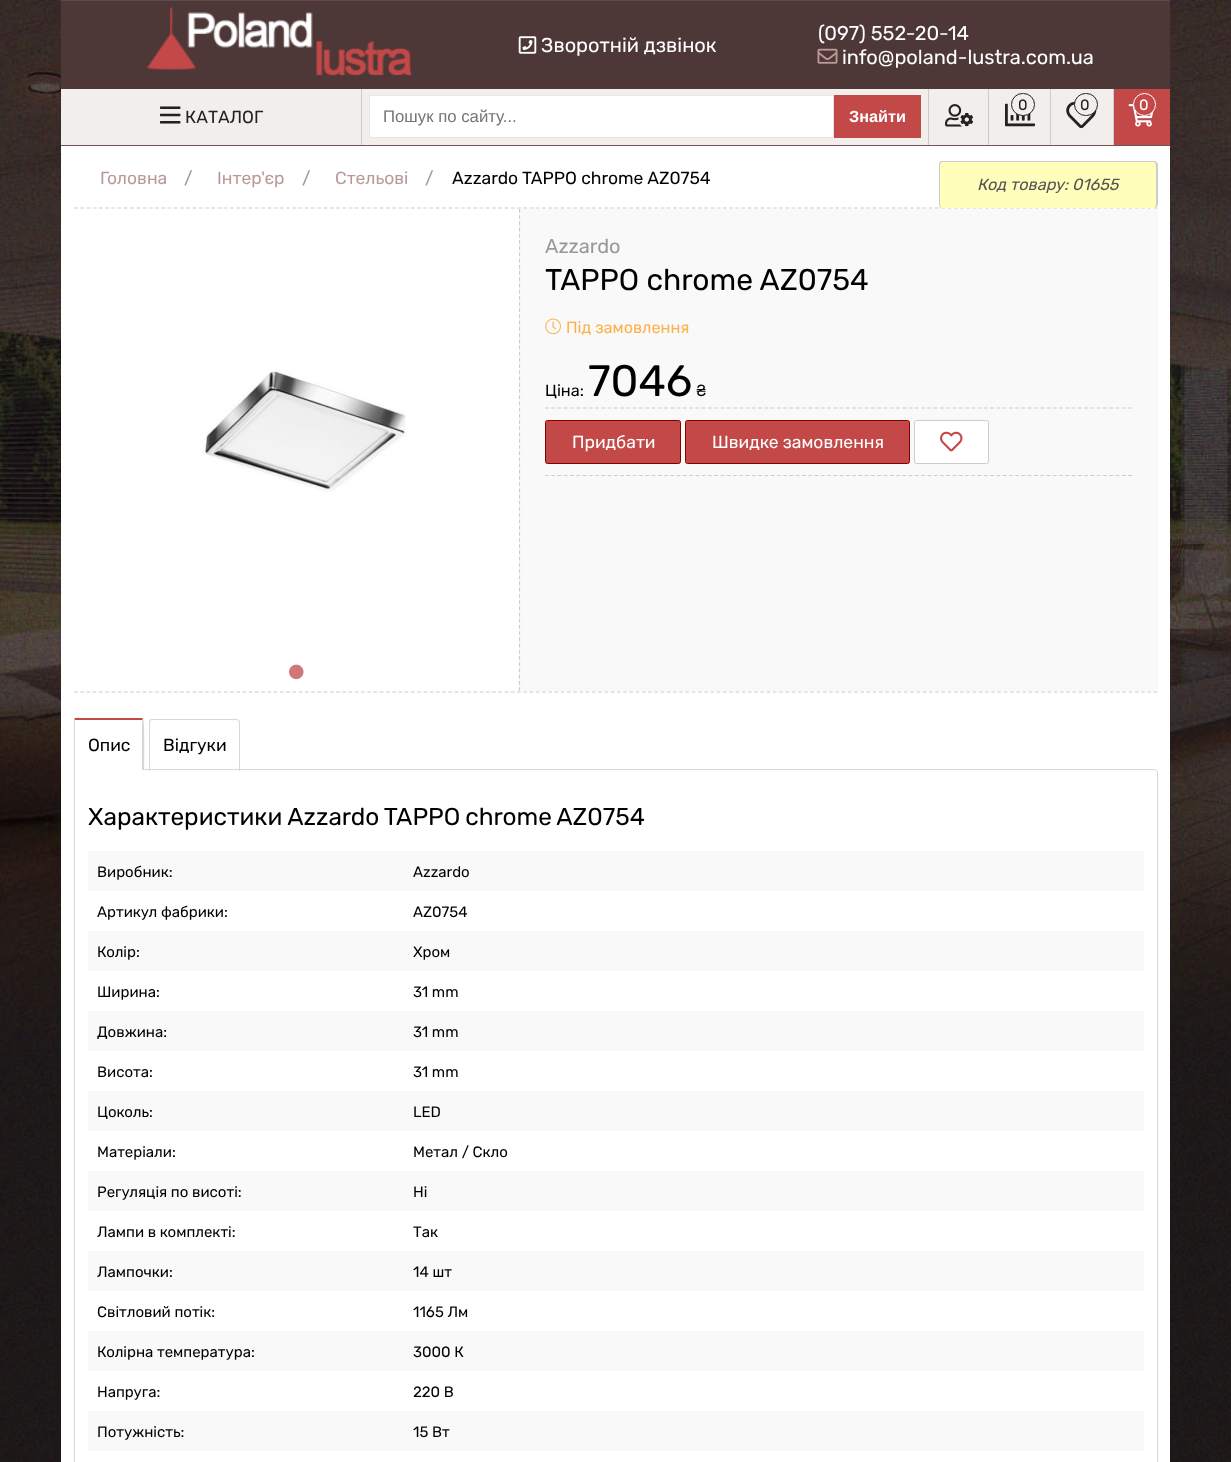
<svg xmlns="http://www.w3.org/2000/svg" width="1231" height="1462">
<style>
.a{font:20px Rubik;fill:#fff}
.b{font:15px Rubik;fill:#222}
.c{font:15px Rubik;fill:#fff}
.d{font:17.5px Rubik;fill:#222}
.e{font:16.75px Liberation Sans;fill:#757575}
.f{font:bold 16.25px Liberation Sans;fill:#fff}
.g{font:17.5px Rubik;fill:#ba9999}
.h{font:17.5px Rubik;fill:#999}
.i{font:17.5px Rubik;fill:#000}
.j{font:italic 16.25px Rubik;fill:#555}
.k{font:20px Rubik;fill:#999}
.l{font:30px Rubik;fill:#000}
.m{font:16.25px Rubik;fill:#fcb149}
.n{font:16.25px Rubik;fill:#000}
.o{font:44px Rubik;fill:#000}
.p{font:17.5px Rubik;fill:#fff}
.q{font:24.4px Rubik;fill:#000}
.r{font:15px Rubik;fill:#000}
</style>
<defs>
<clipPath id="clip1"><path d="M74 718h1084v52H74z"/></clipPath>
</defs>
<rect width="100%" height="100%" fill="#fff"/>
<image href="1.png" x="0" y="0" width="1231" height="1462"/>
<path fill="#4d3737" d="M61 1h1109v88H61z"/>
<path fill="#604a4c" d="M61 0h1109v1H61z"/>
<image href="2.png" x="146" y="7" width="266" height="69"/>
<image href="3.png" x="518" y="36" width="19" height="18"/>
<image href="4.png" x="817" y="48" width="21" height="16"/>
<path fill="#f2eeeb" d="M61 89h1052v56H61z"/>
<path fill="#ccc" d="M928 89h1v56H928z"/>
<image href="5.png" x="945" y="104" width="29" height="23"/>
<path fill="#ccc" d="M988 89h1v56H988z"/>
<image href="6.png" x="1005" y="103" width="30" height="24"/>
<rect fill="#f2eeeb" stroke="#222" x="1011.5" y="93.5" width="23" height="22" rx="11"/>
<path fill="#ccc" d="M1050 89h1v56H1050z"/>
<image href="7.png" x="1066" y="101" width="31" height="28"/>
<rect fill="#f2eeeb" stroke="#222" x="1074.5" y="93.5" width="23" height="22" rx="11"/>
<path fill="#c34949" d="M1114 89h56v56H1114z"/>
<path fill="#ccc" d="M1113 89h1v56H1113z"/>
<image href="8.png" x="1128" y="104" width="26" height="23"/>
<circle fill="#c34949" stroke="#fff" cx="1144.5" cy="104.5" r="11"/>
<image href="9.png" x="160" y="106" width="21" height="18"/>
<path fill="#ccc" d="M361 89h1v56H361z"/>
<path fill="#fff" stroke="#e6e6e6" d="M369.5 95.5h464v42H369.5z"/>
<path fill="#c34949" d="M834 95h87v43H834z"/>
<path fill="#fff" d="M61 146h1109v1316H61z"/>
<path fill="#725252" d="M61 145h1109v1H61z"/>
<path fill="none" stroke="#ccc" stroke-width="1.2" stroke-dasharray="3.75 2.49" d="M74 208h1083.5"/>
<rect fill="#fffeba" x="939" y="161" width="219" height="47" rx="4"/>
<path fill="#ccc" fill-rule="evenodd" d="M942 161h212c2 0 4 2 4 4v39c0 2-2 4-4 4h-212c-2 0-3-2-3-4v-39c0-2 1-4 3-4zm0 1h212c1 0 2 2 2 3v39c0 2-1 4-2 4h-212c-1 0-2-2-2-4v-39c0-1 1-3 2-3z"/>
<path fill="none" stroke="#ccc" stroke-width="1.2" stroke-dasharray="3.75 2.49" d="M74 692h1083.5"/>
<path fill="#f9f9f9" d="M519 209h639v482H519z"/>
<path fill="none" stroke="#ccc" stroke-width="1.2" stroke-dasharray="3.75 2.46" d="M519.5 209v482"/>
<image href="10.png" x="202" y="209" width="317" height="444"/>
<image href="11.png" x="289" y="664" width="15" height="16"/>
<image href="12.png" x="545" y="318" width="16" height="17"/>
<path fill="none" stroke="#ccc" stroke-width="1.2" stroke-dasharray="3.75 2.52" d="M545 408h587.5"/>
<path fill="none" stroke="#ccc" stroke-width="1.2" stroke-dasharray="3.75 2.52" d="M545 475.5h587.5"/>
<rect fill="#c34949" stroke="#860000" x="545.5" y="420.5" width="135" height="43" rx="2"/>
<rect fill="#c34949" stroke="#860000" x="685.5" y="420.5" width="224" height="43" rx="2"/>
<rect fill="#fff" stroke="#ccc" x="914.5" y="420.5" width="74" height="43" rx="2"/>
<image href="13.png" x="940" y="431" width="23" height="21"/>
<path fill="none" stroke="#d7d7d7" d="M74.5 769.5h1079.5c2 0 3.5 1.5 3.5 3.5v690c0 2-1.5 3.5-3.5 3.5h-1076c-2 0-3.5-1.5-3.5-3.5z"/>
<g clip-path="url(#clip1)">
<path fill="#fff" d="M78 720h64v51h-67v-51z"/>
<path fill="#c34949" d="M74 718c2-4 12-2 13-2h54l2 2l-1 4v-2h-67z"/>
<path fill="#d7d7d7" d="M143 718c2 2 1 49 1 56l-2-4v-48z"/>
<path fill="#d7d7d7" d="M74 773v-55l1 2v51z"/>
</g>
<path fill="#d7d7d7" fill-rule="evenodd" d="M152 719h84c2 0 4 1 4 3v49h-91v-49c0-2 1-3 3-3zm0 1h84c2 0 3 1 3 2v49h-89v-49c0-1 1-2 2-2z"/>
<path fill="#f9f9f9" d="M88 851h1056v40H88z"/>
<path fill="#f9f9f9" d="M88 931h1056v40H88z"/>
<path fill="#f9f9f9" d="M88 1011h1056v40H88z"/>
<path fill="#f9f9f9" d="M88 1091h1056v40H88z"/>
<path fill="#f9f9f9" d="M88 1171h1056v40H88z"/>
<path fill="#f9f9f9" d="M88 1251h1056v40H88z"/>
<path fill="#f9f9f9" d="M88 1331h1056v40H88z"/>
<path fill="#f9f9f9" d="M88 1411h1056v40H88z"/>
<text class="a" x="541" y="52">Зворотній дзвінок</text>
<text class="a" x="818" y="40">(097) 552-20-14</text>
<text class="a" x="842" y="64">info@poland-lustra.com.ua</text>
<text class="b" x="1018" y="110">0</text>
<text class="b" x="1080" y="110">0</text>
<text class="c" x="1139" y="110">0</text>
<text class="d" x="185" y="123">КАТАЛОГ</text>
<text class="e" x="383" y="122">Пошук по сайту...</text>
<text class="f" x="849" y="122">Знайти</text>
<text class="g" x="100" y="184">Головна</text>
<text class="h" x="184" y="184">/</text>
<text class="g" x="217" y="184">Інтер'єр</text>
<text class="h" x="302" y="184">/</text>
<text class="g" x="335" y="184">Стельові</text>
<text class="h" x="425" y="184">/</text>
<text class="i" x="452" y="184">Azzardo TAPPO chrome AZ0754</text>
<text class="j" x="977" y="190">Код товару: 01655</text>
<text class="k" x="545" y="253">Azzardo</text>
<text class="l" x="545" y="290">TAPPO chrome AZ0754</text>
<text class="m" x="566" y="333">Під замовлення</text>
<text class="n" x="545" y="396">Ціна:</text>
<text class="o" x="588" y="396">7046</text>
<text class="n" x="696" y="396">₴</text>
<text class="p" x="572" y="448">Придбати</text>
<text class="p" x="712" y="448">Швидке замовлення</text>
<text class="i" x="88" y="751">Опис</text>
<text class="i" x="163" y="751">Відгуки</text>
<text class="q" x="88" y="825" word-spacing="-1">Характеристики Azzardo TAPPO chrome AZ0754</text>
<text class="r" x="97" y="877">Виробник:</text>
<text class="r" x="413" y="877">Azzardo</text>
<text class="r" x="97" y="917">Артикул фабрики:</text>
<text class="r" x="413" y="917">AZ0754</text>
<text class="r" x="97" y="957">Колір:</text>
<text class="r" x="413" y="957">Хром</text>
<text class="r" x="97" y="997">Ширина:</text>
<text class="r" x="413" y="997">31 mm</text>
<text class="r" x="97" y="1037">Довжина:</text>
<text class="r" x="413" y="1037">31 mm</text>
<text class="r" x="97" y="1077">Висота:</text>
<text class="r" x="413" y="1077">31 mm</text>
<text class="r" x="97" y="1117">Цоколь:</text>
<text class="r" x="413" y="1117">LED</text>
<text class="r" x="97" y="1157">Матеріали:</text>
<text class="r" x="413" y="1157">Метал / Скло</text>
<text class="r" x="97" y="1197">Регуляція по висоті:</text>
<text class="r" x="413" y="1197">Ні</text>
<text class="r" x="97" y="1237">Лампи в комплекті:</text>
<text class="r" x="413" y="1237">Так</text>
<text class="r" x="97" y="1277">Лампочки:</text>
<text class="r" x="413" y="1277">14 шт</text>
<text class="r" x="97" y="1317">Світловий потік:</text>
<text class="r" x="413" y="1317">1165 Лм</text>
<text class="r" x="97" y="1357">Колірна температура:</text>
<text class="r" x="413" y="1357">3000 К</text>
<text class="r" x="97" y="1397">Напруга:</text>
<text class="r" x="413" y="1397">220 В</text>
<text class="r" x="97" y="1437">Потужність:</text>
<text class="r" x="413" y="1437">15 Вт</text>
</svg>
